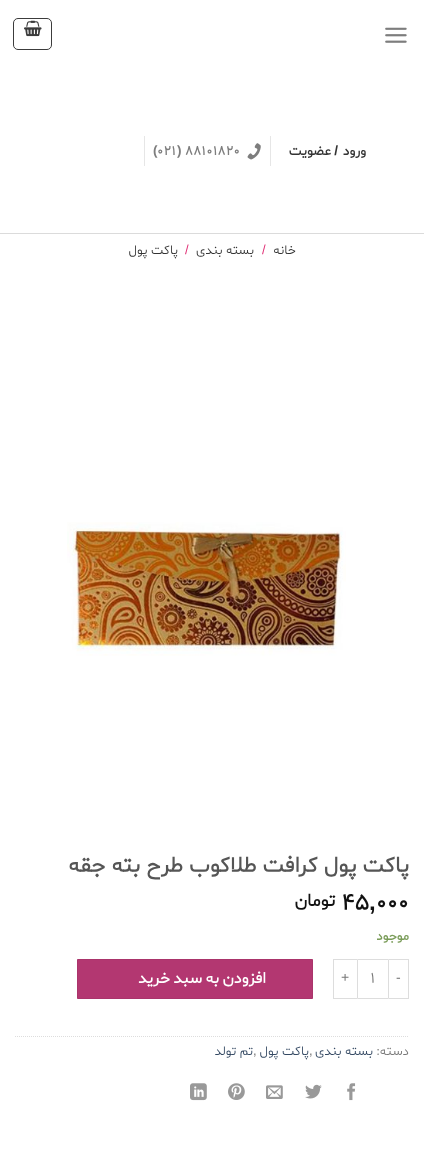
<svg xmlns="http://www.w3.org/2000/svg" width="424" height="1174">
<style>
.a{font:bold 13.5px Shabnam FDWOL;direction:rtl;fill:#333}
.b{font:bold 13.5px Liberation Sans;direction:rtl;fill:#333}
.c{font:bold 13.5px Shabnam FDWOL;letter-spacing:0.25px;fill:#7d7d7d}
.d{font:bold 13.5px Liberation Sans;letter-spacing:0.25px;fill:#7d7d7d}
.e{font:300 13px Shabnam FDWOL;direction:rtl;fill:#333}
.f{font:13px Liberation Sans;fill:#e13378}
.g{font:bold 22.4px Shabnam FDWOL;direction:rtl;fill:#555}
.h{font:bold 24px Shabnam FDWOL;fill:#111}
.i{font:bold 18px Shabnam FDWOL;direction:rtl;fill:#111}
.j{font:bold 24px Liberation Sans;fill:#111}
.k{font:bold 13px Shabnam FDWOL;direction:rtl;fill:#7a9c59}
.l{font:14px Liberation Sans;fill:#777}
.m{font:300 16px Shabnam FDWOL;fill:#777}
.n{font:bold 16px Shabnam FDWOL;letter-spacing:0.5px;direction:rtl;fill:#fff}
.o{font:300 13px Shabnam FDWOL;direction:rtl;fill:#777}
.p{font:300 13px Shabnam FDWOL;direction:rtl;fill:#334862}
.q{font:13px Liberation Sans;fill:#777}
</style>
<rect width="100%" height="100%" fill="#fff"/>
<image href="1.png" x="385" y="27" width="22" height="16"/>
<rect fill="none" stroke="#3c3c3c" x="13.5" y="18.5" width="38" height="31" rx="4.5"/>
<image href="2.png" x="24" y="20" width="18" height="17"/>
<path fill="#dbdbdb" d="M0 233h424v1H0z"/>
<path fill="#e6e6e6" d="M270 136h1v30H270z"/>
<image href="3.png" x="247" y="143" width="14" height="17"/>
<path fill="#e6e6e6" d="M144 136h1v30H144z"/>
<image href="4.png" x="67" y="522" width="279" height="134"/>
<path fill="#ddd" d="M389 959h20v1H389z"/>
<path fill="#ddd" d="M408 959h1v40H408z"/>
<path fill="#ddd" d="M389 998h20v1H389z"/>
<path fill="none" stroke="#ddd" d="M357.5 959.5h31v39H357.5z"/>
<path fill="#ddd" d="M333 959h24v1H333z"/>
<path fill="#ddd" d="M333 998h24v1H333z"/>
<path fill="#ddd" d="M333 959h1v40H333z"/>
<path fill="#b33771" stroke="#aa346b" d="M77.5 959.5h235v39H77.5z"/>
<path fill="none" stroke="#ddd" stroke-dasharray="1 1" d="M15 1036.5h394"/>
<image href="5.png" x="347" y="1083" width="9" height="18"/>
<image href="6.png" x="305" y="1084" width="17" height="15"/>
<image href="7.png" x="266" y="1085" width="17" height="14"/>
<image href="8.png" x="228" y="1083" width="17" height="17"/>
<image href="9.png" x="190" y="1083" width="17" height="18"/>
<text class="a" x="366" y="155">ورود</text>
<text class="b" x="338" y="155">/</text>
<text class="a" x="331" y="155">عضویت</text>
<text class="c" x="185" y="155">88101820</text>
<text class="d" x="177" y="155">)</text>
<text class="c" x="157" y="155">021</text>
<text class="d" x="153" y="155">(</text>
<text class="e" x="296" y="254">خانه</text>
<text class="f" x="262" y="254">/</text>
<text class="e" x="254" y="254">بسته بندی</text>
<text class="f" x="185" y="254">/</text>
<text class="e" x="178" y="254">پاکت پول</text>
<text class="g" x="409" y="872">پاکت پول کرافت طلاکوب طرح بته جقه</text>
<text class="h" x="341" y="910">45 000</text>
<text class="i" x="335" y="906">تومان</text>
<text class="j" x="369" y="910">,</text>
<text class="k" x="409" y="940">موجود</text>
<text class="l" x="396" y="982">-</text>
<text class="m" x="370" y="983">1</text>
<text class="l" x="341" y="982">+</text>
<text class="n" x="266" y="983" word-spacing="-1">افزودن به سبد خرید</text>
<text class="o" x="409" y="1055">دسته:</text>
<text class="p" x="373" y="1055">بسته بندی</text>
<text class="q" x="309" y="1055">,</text>
<text class="p" x="309" y="1055">پاکت پول</text>
<text class="q" x="253" y="1055">,</text>
<text class="p" x="253" y="1055">تم تولد</text>
</svg>
